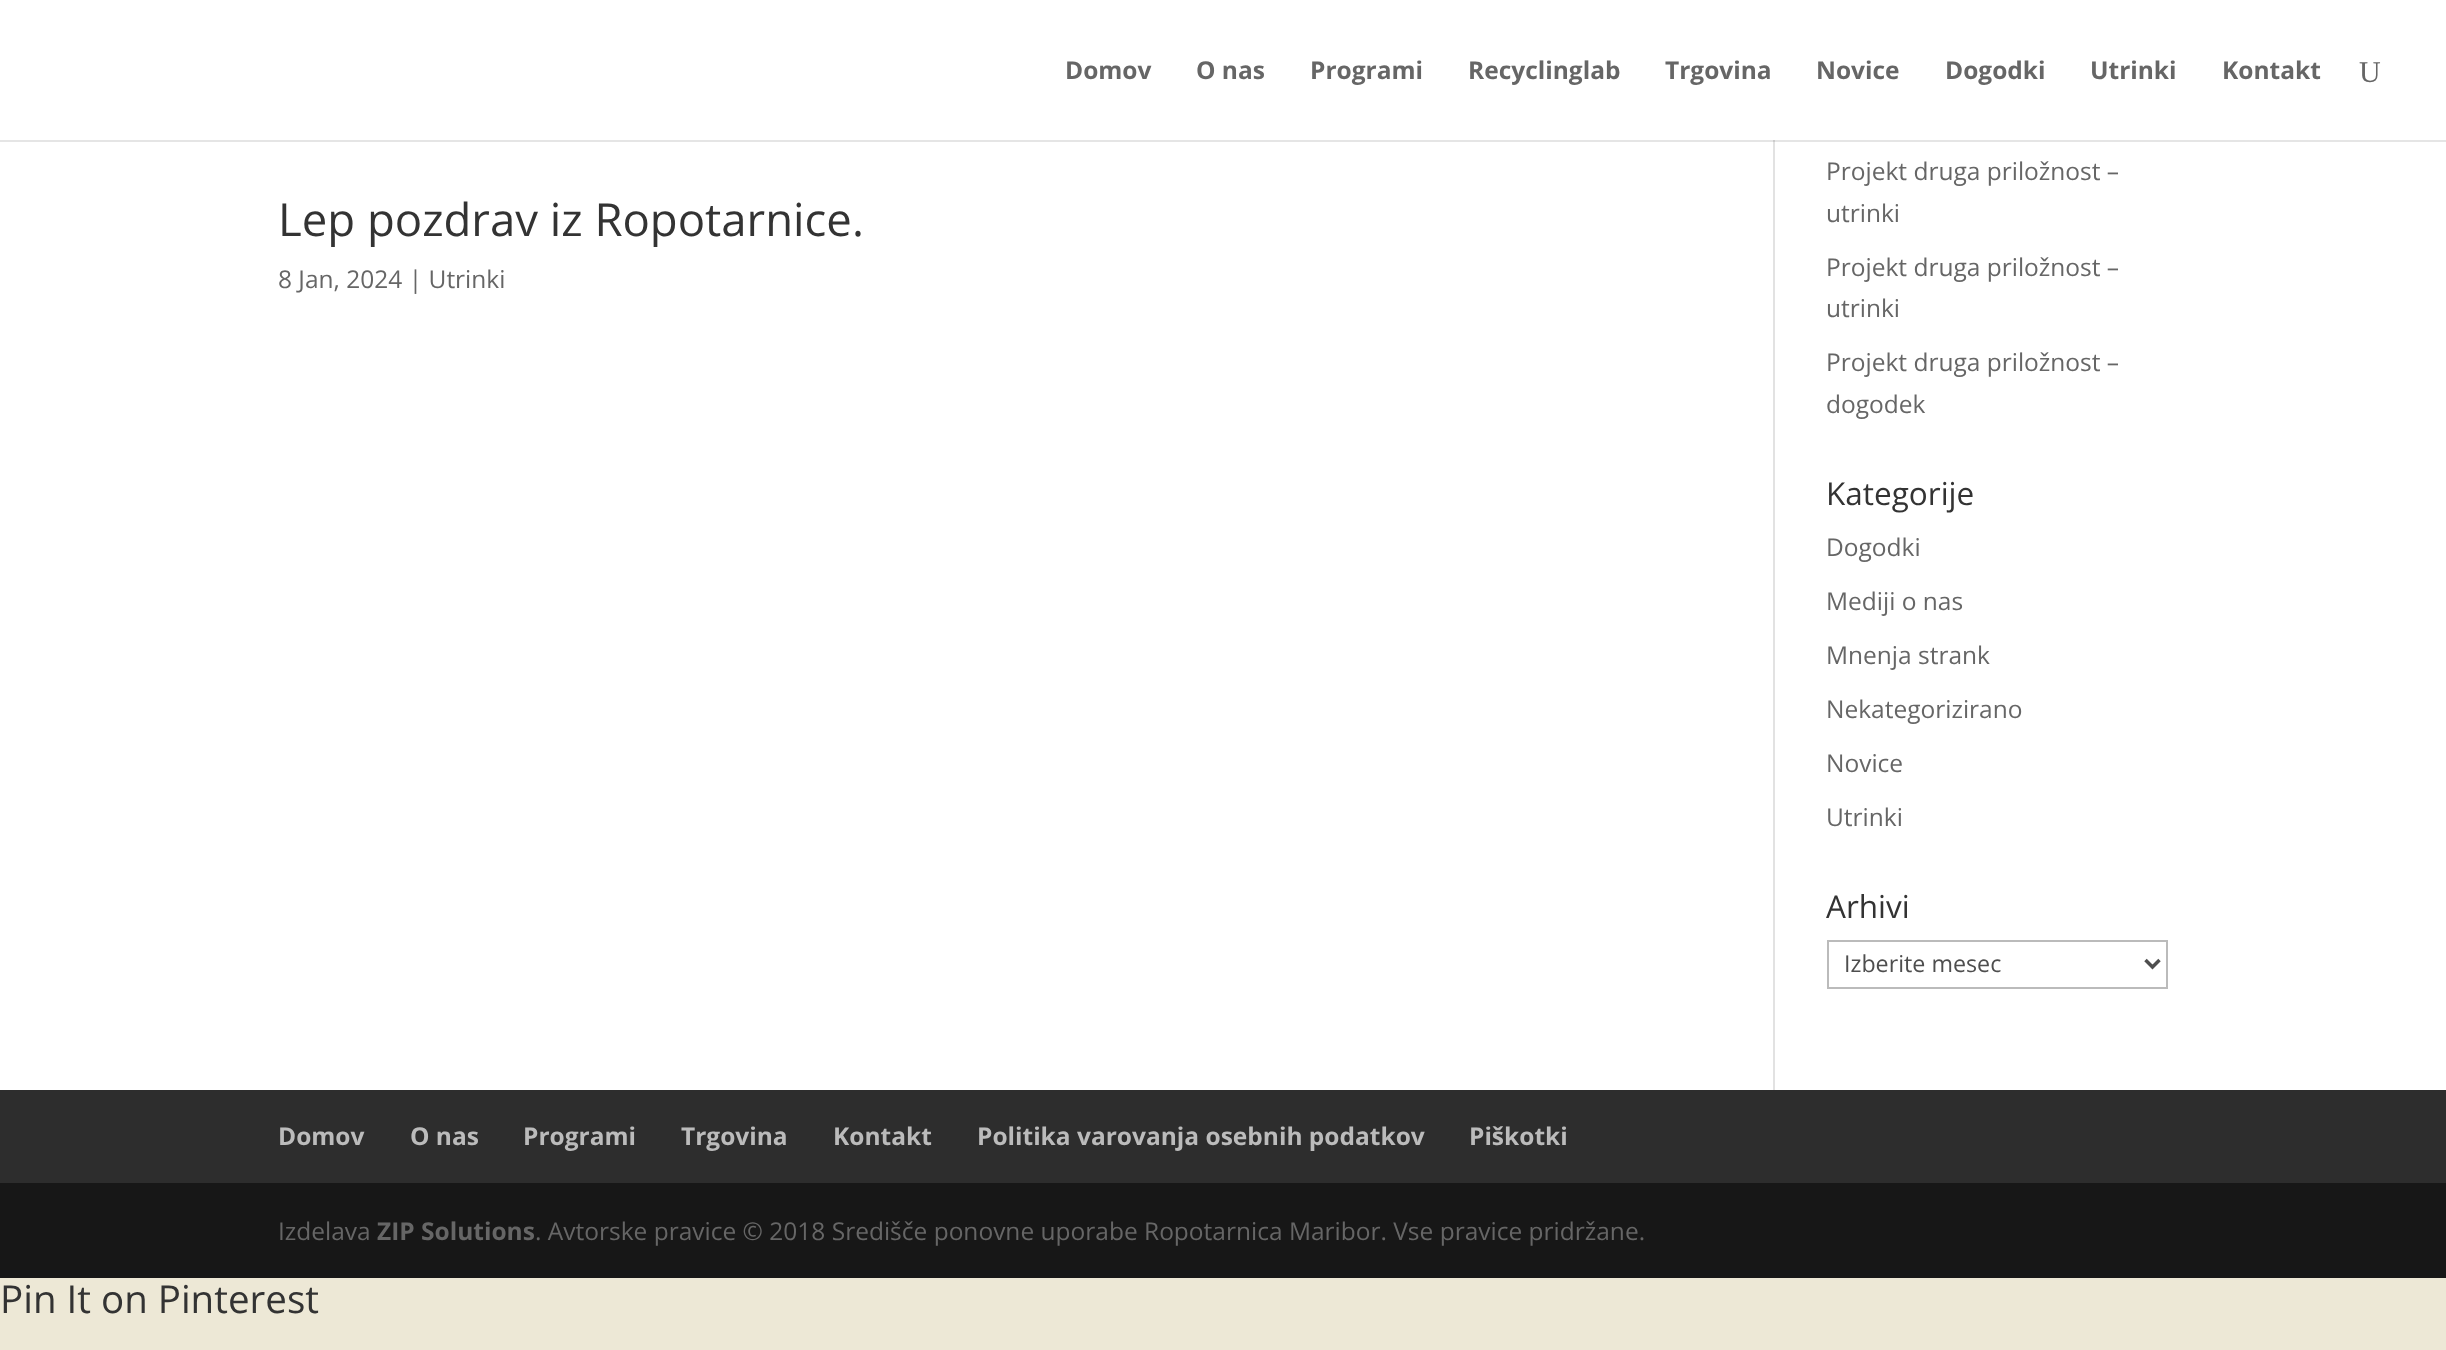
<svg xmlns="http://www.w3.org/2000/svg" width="2446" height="1350">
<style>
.a{font:bold 24.5px Open Sans;fill:#666}
.b{font:30px Liberation Serif;fill:#666}
.c{font:45.5px Open Sans;fill:#333}
.d{font:24.5px Open Sans;fill:#666}
.e{font:31.5px Open Sans;fill:#333}
.f{font:23.25px Open Sans;fill:#4e4e4e}
.g{font:bold 24.5px Open Sans;fill:#bbb}
.h{font:38.5px Open Sans;fill:#333}
</style>
<rect width="100%" height="100%" fill="#ede8d6"/>
<path fill="#fff" d="M0 0h2446v1090H0z"/>
<path fill="#e2e2e2" d="M1773 140h2v950H1773z"/>
<path fill="#0000001a" d="M0 140v2h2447v-140h-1v138z"/>
<path fill="none" stroke="#bbb" stroke-width="2" d="M1828 941h339v47H1828z"/>
<path fill="none" stroke="#4e4e4e" stroke-width="3.5" d="M2145.5 960l7 7l7-7"/>
<path fill="#2d2d2d" d="M0 1090h2446v93H0z"/>
<path fill="#171717" d="M0 1183h2446v95H0z"/>
<text class="a" x="1065" y="79">Domov</text>
<text class="a" x="1196" y="79">O nas</text>
<text class="a" x="1310" y="79">Programi</text>
<text class="a" x="1468" y="79">Recyclinglab</text>
<text class="a" x="1665" y="79">Trgovina</text>
<text class="a" x="1816" y="79">Novice</text>
<text class="a" x="1945" y="79">Dogodki</text>
<text class="a" x="2090" y="79">Utrinki</text>
<text class="a" x="2222" y="79">Kontakt</text>
<text class="b" x="2359" y="82">U</text>
<text class="c" x="278" y="236">Lep pozdrav iz Ropotarnice.</text>
<text class="d" x="278" y="288">8 Jan, 2024 | Utrinki</text>
<text class="d" x="1826" y="180">Projekt druga priložnost –</text>
<text class="d" x="1826" y="222">utrinki</text>
<text class="d" x="1826" y="276">Projekt druga priložnost –</text>
<text class="d" x="1826" y="317">utrinki</text>
<text class="d" x="1826" y="371">Projekt druga priložnost –</text>
<text class="d" x="1826" y="413">dogodek</text>
<text class="e" x="1826" y="505">Kategorije</text>
<text class="d" x="1826" y="556">Dogodki</text>
<text class="d" x="1826" y="610">Mediji o nas</text>
<text class="d" x="1826" y="664">Mnenja strank</text>
<text class="d" x="1826" y="718">Nekategorizirano</text>
<text class="d" x="1826" y="772">Novice</text>
<text class="d" x="1826" y="826">Utrinki</text>
<text class="e" x="1826" y="918">Arhivi</text>
<text class="f" x="1844" y="972">Izberite mesec</text>
<text class="g" x="278" y="1145">Domov</text>
<text class="g" x="410" y="1145">O nas</text>
<text class="g" x="523" y="1145">Programi</text>
<text class="g" x="681" y="1145">Trgovina</text>
<text class="g" x="833" y="1145">Kontakt</text>
<text class="g" x="977" y="1145">Politika varovanja osebnih podatkov</text>
<text class="g" x="1469" y="1145">Piškotki</text>
<text class="d" x="278" y="1240">Izdelava</text>
<text class="a" x="377" y="1240">ZIP Solutions</text>
<text class="d" x="535" y="1240">. Avtorske pravice © 2018 Središče ponovne uporabe Ropotarnica Maribor. Vse pravice pridržane.</text>
<text class="h" x="0" y="1313">Pin It on Pinterest</text>
</svg>
